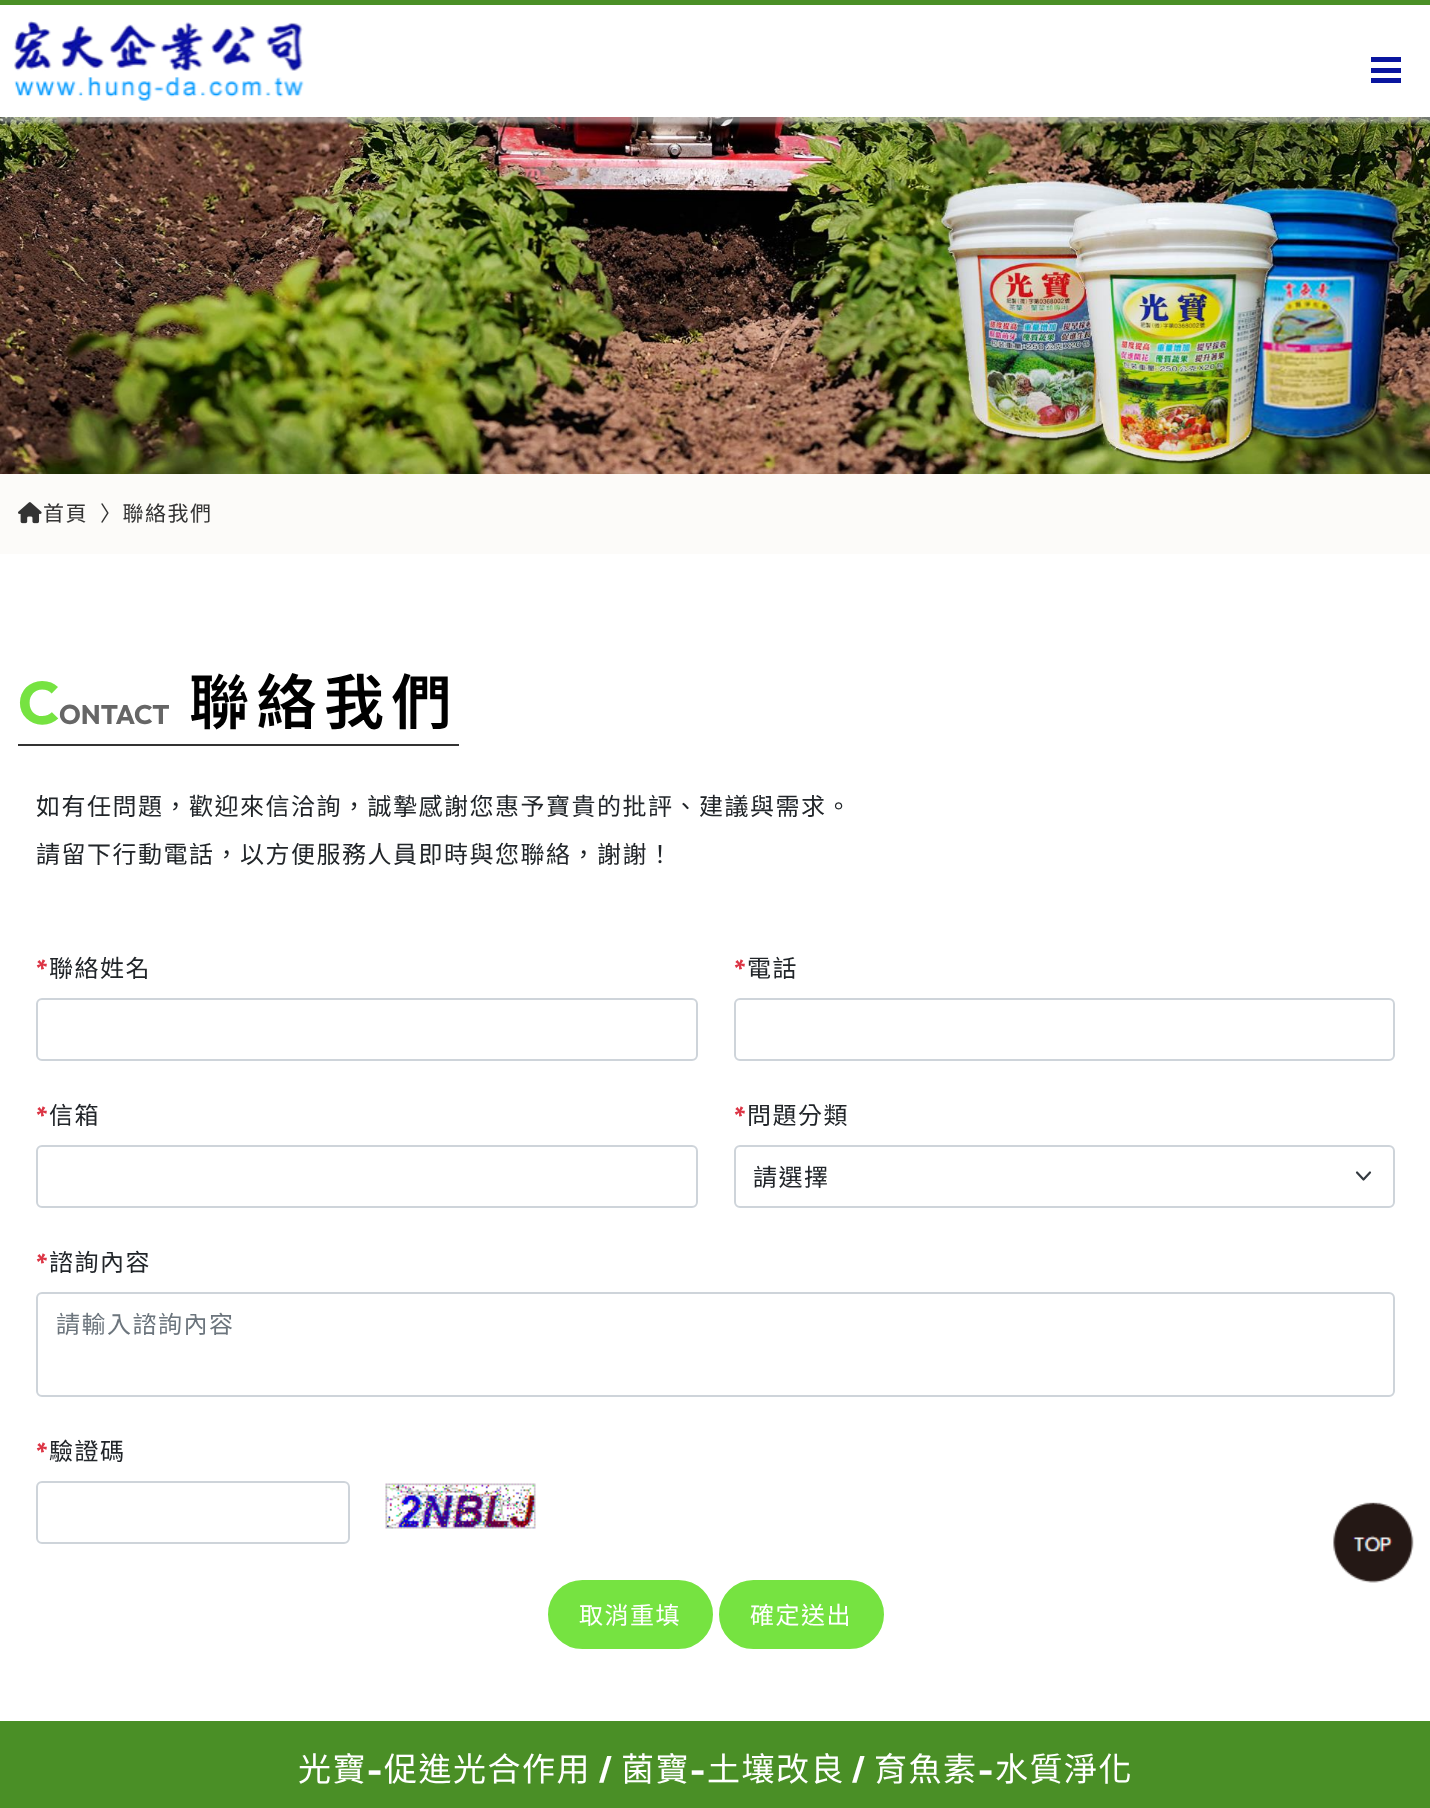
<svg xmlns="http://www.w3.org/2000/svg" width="1430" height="1808">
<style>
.a{font:21px Noto Sans TC;letter-spacing:1.5px;fill:#333}
.b{font:bold 60px Outfit;fill:#76e341}
.c{font:bold 27px Outfit;fill:#666}
.d{font:600 60px Noto Sans TC;letter-spacing:7.5px;fill:#000}
.e{font:24px Noto Sans TC;letter-spacing:1.5px;fill:#212529}
.f{font:bold 24px Outfit;letter-spacing:1.5px;fill:#dc3545}
.g{font:24px Noto Sans TC;letter-spacing:1.5px;fill:#6c757d}
.h{font:24px Noto Sans TC;letter-spacing:1.5px;fill:#fff}
.i{font:33px Noto Sans TC;letter-spacing:1.5px;fill:#fff}
.j{font:bold 33px Outfit;letter-spacing:1.5px;fill:#fff}
</style>
<defs>
<clipPath id="clip1"><path d="M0 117h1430v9H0z"/></clipPath>
</defs>
<rect width="100%" height="100%" fill="#fff"/>
<image href="2.png" x="0" y="117" width="1430" height="357"/>
<g clip-path="url(#clip1)">
<path fill="#dedede80" filter="blur(1.5px)" d="M0 0h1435v123H0z"/>
</g>
<path fill="#4a8f26" d="M0 0h1430v5H0z"/>
<image href="1.png" x="14" y="20" width="290" height="81"/>
<path fill="#09159f" d="M1371 68h30v5H1371z"/>
<path fill="#09159f" d="M1371 57h30v5H1371z"/>
<path fill="#09159f" d="M1371 78h30v5H1371z"/>
<path fill="#fcfbf9" d="M0 474h1430v80H0z"/>
<image href="3.png" x="18" y="502" width="24" height="22"/>
<path fill="#333" d="M18 744h441v2H18z"/>
<rect fill="none" stroke="#ced4da" stroke-width="2" x="37" y="999" width="660" height="61" rx="5"/>
<rect fill="none" stroke="#ced4da" stroke-width="2" x="735" y="999" width="659" height="61" rx="5"/>
<rect fill="none" stroke="#ced4da" stroke-width="2" x="37" y="1146" width="660" height="61" rx="5"/>
<path fill="none" stroke="#343a40" stroke-width="2.2" stroke-linecap="round" stroke-linejoin="round" d="M1357 1172.5l6.5 7l6.5-7"/>
<rect fill="none" stroke="#ced4da" stroke-width="2" x="735" y="1146" width="659" height="61" rx="5"/>
<rect fill="none" stroke="#ced4da" stroke-width="2" x="37" y="1293" width="1357" height="103" rx="5"/>
<rect fill="none" stroke="#ced4da" stroke-width="2" x="37" y="1482" width="312" height="61" rx="5"/>
<image href="4.png" x="385" y="1483" width="151" height="46"/>
<rect fill="#76e341" stroke="#76e341" stroke-width="2" x="549" y="1581" width="163" height="67" rx="33.5"/>
<rect fill="#76e341" stroke="#76e341" stroke-width="2" x="720" y="1581" width="163" height="67" rx="33.5"/>
<image href="5.png" x="1333" y="1502" width="81" height="81"/>
<path fill="#4a8f26" d="M0 1721h1430v87H0z"/>
<text class="a" x="43" y="521">首頁</text>
<text class="a" x="100" y="521">〉聯絡我們</text>
<text class="b" x="18" y="724">C</text>
<text class="c" x="59" y="724">ONTACT</text>
<text class="d" x="189" y="724">聯絡我們</text>
<text class="e" x="36" y="815">如有任問題，歡迎來信洽詢，誠摯感謝您惠予寶貴的批評、建議與需求。</text>
<text class="e" x="36" y="863">請留下行動電話，以方便服務人員即時與您聯絡，謝謝！</text>
<text class="f" x="36" y="977">*</text>
<text class="e" x="49" y="977">聯絡姓名</text>
<text class="f" x="734" y="977">*</text>
<text class="e" x="747" y="977">電話</text>
<text class="f" x="36" y="1124">*</text>
<text class="e" x="49" y="1124">信箱</text>
<text class="f" x="734" y="1124">*</text>
<text class="e" x="747" y="1124">問題分類</text>
<text class="e" x="753" y="1186">請選擇</text>
<text class="f" x="36" y="1271">*</text>
<text class="e" x="49" y="1271">諮詢內容</text>
<text class="g" x="56" y="1333">請輸入諮詢內容</text>
<text class="f" x="36" y="1460">*</text>
<text class="e" x="49" y="1460">驗證碼</text>
<text class="h" x="579" y="1624">取消重填</text>
<text class="h" x="750" y="1624">確定送出</text>
<text class="i" x="298" y="1781">光寶</text>
<text class="j" x="367" y="1781">-</text>
<text class="i" x="384" y="1781">促進光合作用</text>
<text class="j" x="599" y="1781">/</text>
<text class="i" x="621" y="1781">菌寶</text>
<text class="j" x="690" y="1781">-</text>
<text class="i" x="707" y="1781">土壤改良</text>
<text class="j" x="852" y="1781">/</text>
<text class="i" x="874" y="1781">育魚素</text>
<text class="j" x="978" y="1781">-</text>
<text class="i" x="995" y="1781">水質淨化</text>
</svg>
